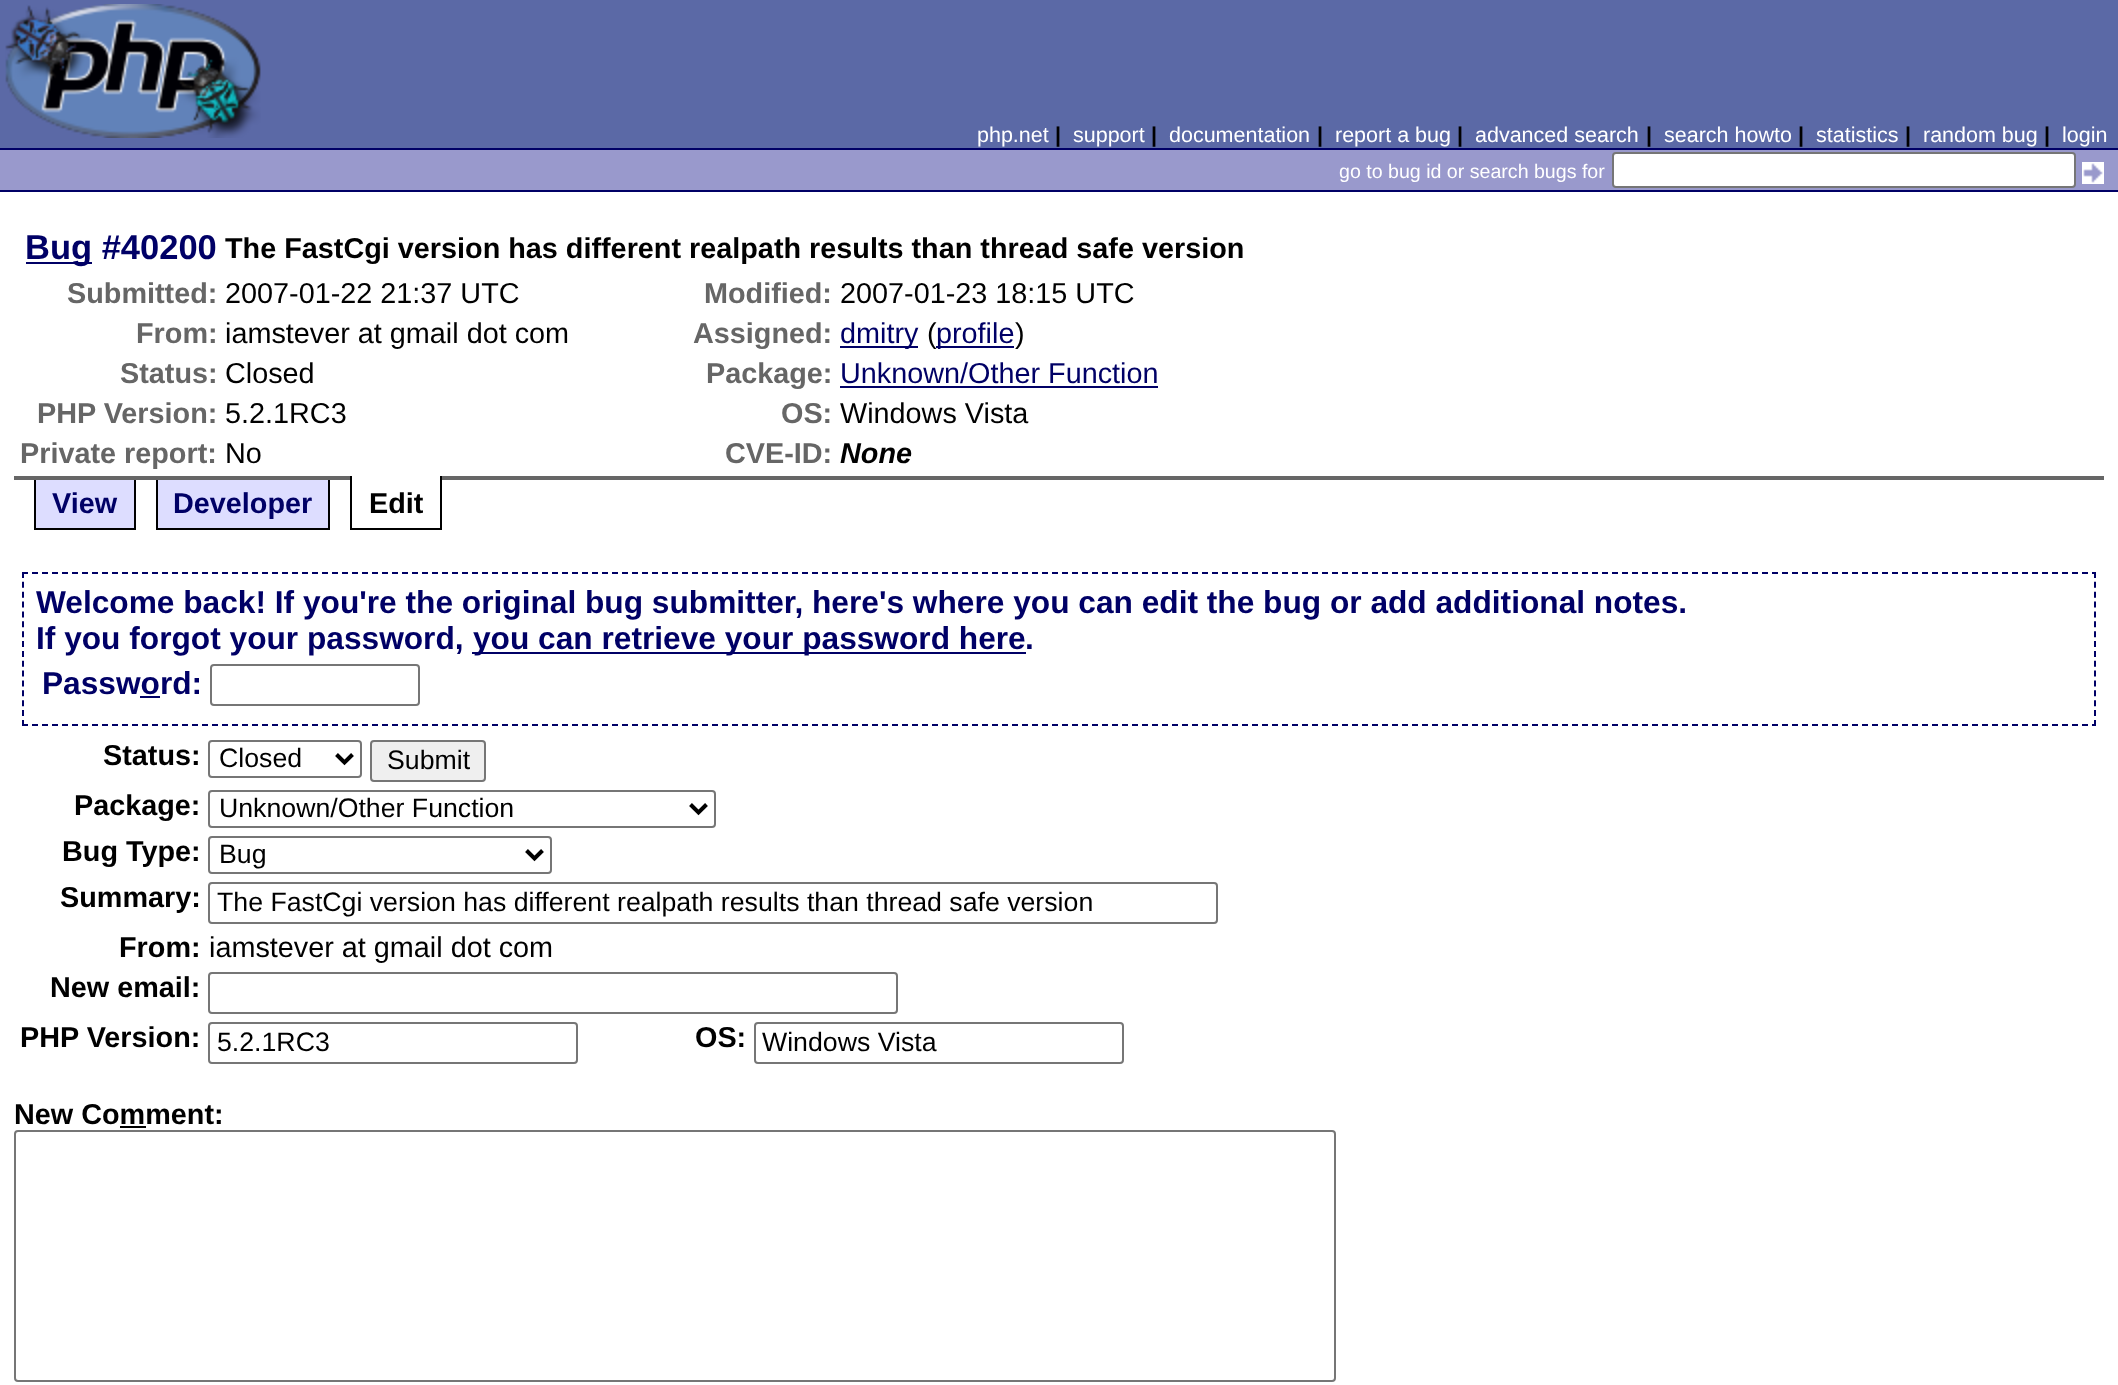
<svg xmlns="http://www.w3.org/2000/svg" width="2118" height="1385">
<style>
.a{font:21.5px Liberation Sans;fill:#fff}
.b{font:bold 21.5px Liberation Sans;fill:#000}
.c{font:19.6px Liberation Sans;fill:#fff}
.d{font:bold 34.5px Liberation Sans;fill:#006}
.e{font:bold 28.8px Liberation Sans;fill:#000}
.f{font:bold 28.8px Liberation Sans;fill:#666}
.g{font:28.8px Liberation Sans;fill:#000}
.h{font:28.8px Liberation Sans;fill:#006}
.i{font:italic bold 28.8px Liberation Sans;fill:#000}
.j{font:bold 28.8px Liberation Sans;fill:#006}
.k{font:bold 31.68px Liberation Sans;fill:#006}
.l{font:26.7px Liberation Sans;fill:#000}
</style>
<rect width="100%" height="100%" fill="#fff"/>
<path fill="#5b69a6" d="M0 0h2118v148H0z"/>
<image href="1.png" x="5" y="4" width="256" height="134"/>
<path fill="#99c" d="M0 150h2118v40H0z"/>
<path fill="#006" d="M0 148h2118v2H0z"/>
<path fill="#006" d="M0 190h2118v2H0z"/>
<rect fill="#fff" stroke="#767676" stroke-width="2" x="1613" y="153" width="462" height="34" rx="3"/>
<image href="2.png" x="2082" y="162" width="22" height="22"/>
<path fill="#666" d="M14 476h2090v4H14z"/>
<path fill="#006" d="M26 262h66v2H26z"/>
<path fill="#006" d="M840 346h78v2H840z"/>
<path fill="#006" d="M840 386h318v2H840z"/>
<path fill="#ddf" d="M36 480h98v48H36z"/>
<path fill="#000" d="M134 480h2v50H134z"/>
<path fill="#000" d="M34 528h102v2H34z"/>
<path fill="#000" d="M34 480h2v50H34z"/>
<path fill="#ddf" d="M158 480h170v48H158z"/>
<path fill="#000" d="M328 480h2v50H328z"/>
<path fill="#000" d="M156 528h174v2H156z"/>
<path fill="#000" d="M156 480h2v50H156z"/>
<path fill="#fff" d="M352 476h88v4H352z"/>
<path fill="#000" d="M440 476h2v54H440z"/>
<path fill="#000" d="M350 528h92v2H350z"/>
<path fill="#000" d="M350 476h2v54H350z"/>
<path fill="none" stroke="#006" stroke-width="2" stroke-dasharray="6 4" d="M22 573h2074"/>
<path fill="none" stroke="#006" stroke-width="2" stroke-dasharray="6 3.86" d="M2095 572v154"/>
<path fill="none" stroke="#006" stroke-width="2" stroke-dasharray="6 4" d="M22 725h2074"/>
<path fill="none" stroke="#006" stroke-width="2" stroke-dasharray="6 3.86" d="M23 572v154"/>
<path fill="#006" d="M472 652h554v2H472z"/>
<path fill="#006" d="M140 696h20v2H140z"/>
<rect fill="none" stroke="#767676" stroke-width="2" x="211" y="665" width="208" height="40" rx="3"/>
<rect fill="none" stroke="#767676" stroke-width="2" x="209" y="741" width="152" height="36" rx="3"/>
<path fill="none" stroke="#000" stroke-width="4" d="M336.5 754.5l8 8l8-8"/>
<rect fill="#efefef" stroke="#767676" stroke-width="2" x="371" y="741" width="114" height="40" rx="3"/>
<rect fill="none" stroke="#767676" stroke-width="2" x="209" y="791" width="506" height="36" rx="3"/>
<path fill="none" stroke="#000" stroke-width="4" d="M690.5 804.5l8 8l8-8"/>
<rect fill="none" stroke="#767676" stroke-width="2" x="209" y="837" width="342" height="36" rx="3"/>
<path fill="none" stroke="#000" stroke-width="4" d="M526.5 850.5l8 8l8-8"/>
<rect fill="none" stroke="#767676" stroke-width="2" x="209" y="883" width="1008" height="40" rx="3"/>
<rect fill="none" stroke="#767676" stroke-width="2" x="209" y="973" width="688" height="40" rx="3"/>
<rect fill="none" stroke="#767676" stroke-width="2" x="209" y="1023" width="368" height="40" rx="3"/>
<rect fill="none" stroke="#767676" stroke-width="2" x="755" y="1023" width="368" height="40" rx="3"/>
<path fill="#000" d="M120 1126h26v2H120z"/>
<rect fill="none" stroke="#767676" stroke-width="2" x="15" y="1131" width="1320" height="250" rx="3"/>
<text class="a" x="977" y="142">php.net</text>
<text class="b" x="1055" y="142">|</text>
<text class="a" x="1073" y="142">support</text>
<text class="b" x="1151" y="142">|</text>
<text class="a" x="1169" y="142">documentation</text>
<text class="b" x="1317" y="142">|</text>
<text class="a" x="1335" y="142">report a bug</text>
<text class="b" x="1457" y="142">|</text>
<text class="a" x="1475" y="142">advanced search</text>
<text class="b" x="1646" y="142">|</text>
<text class="a" x="1664" y="142">search howto</text>
<text class="b" x="1798" y="142">|</text>
<text class="a" x="1816" y="142">statistics</text>
<text class="b" x="1905" y="142">|</text>
<text class="a" x="1923" y="142">random bug</text>
<text class="b" x="2044" y="142">|</text>
<text class="a" x="2062" y="142">login</text>
<text class="c" x="1339" y="178">go to bug id or search bugs for</text>
<text class="d" x="25" y="259">Bug #40200</text>
<text class="e" x="225" y="258">The FastCgi version has different realpath results than thread safe version</text>
<text class="f" x="67" y="303">Submitted:</text>
<text class="g" x="225" y="303">2007-01-22 21:37 UTC</text>
<text class="f" x="704" y="303">Modified:</text>
<text class="g" x="840" y="303">2007-01-23 18:15 UTC</text>
<text class="f" x="136" y="343">From:</text>
<text class="g" x="225" y="343">iamstever at gmail dot com</text>
<text class="f" x="693" y="343">Assigned:</text>
<text class="h" x="840" y="343">dmitry</text>
<text class="g" x="927" y="343">(</text>
<path fill="#006" d="M936 346h78v2H936z"/>
<text class="h" x="936" y="343">profile</text>
<text class="g" x="1015" y="343">)</text>
<text class="f" x="120" y="383">Status:</text>
<text class="g" x="225" y="383">Closed</text>
<text class="f" x="706" y="383">Package:</text>
<text class="h" x="840" y="383">Unknown/Other Function</text>
<text class="f" x="37" y="423">PHP Version:</text>
<text class="g" x="225" y="423">5.2.1RC3</text>
<text class="f" x="781" y="423">OS:</text>
<text class="g" x="840" y="423">Windows Vista</text>
<text class="f" x="20" y="463">Private report:</text>
<text class="g" x="225" y="463">No</text>
<text class="f" x="725" y="463">CVE-ID:</text>
<text class="i" x="840" y="463">None</text>
<text class="j" x="52" y="513">View</text>
<text class="j" x="173" y="513">Developer</text>
<text class="e" x="369" y="513">Edit</text>
<text class="k" x="36" y="613">Welcome back! If you're the original bug submitter, here's where you can edit the bug or add additional notes.</text>
<text class="k" x="36" y="649">If you forgot your password,</text>
<text class="k" x="473" y="649">you can retrieve your password here</text>
<text class="k" x="1025" y="649">.</text>
<text class="k" x="42" y="694">Password:</text>
<text class="e" x="103" y="765">Status:</text>
<text class="l" x="219" y="767">Closed</text>
<text class="l" x="387" y="769">Submit</text>
<text class="e" x="74" y="815">Package:</text>
<text class="l" x="219" y="817">Unknown/Other Function</text>
<text class="e" x="62" y="861">Bug Type:</text>
<text class="l" x="219" y="863">Bug</text>
<text class="e" x="60" y="907">Summary:</text>
<text class="l" x="217" y="911">The FastCgi version has different realpath results than thread safe version</text>
<text class="e" x="119" y="957">From:</text>
<text class="g" x="209" y="957">iamstever at gmail dot com</text>
<text class="e" x="50" y="997">New email:</text>
<text class="e" x="20" y="1047">PHP Version:</text>
<text class="l" x="217" y="1051">5.2.1RC3</text>
<text class="e" x="695" y="1047">OS:</text>
<text class="l" x="762" y="1051">Windows Vista</text>
<text class="e" x="14" y="1124">New Comment:</text>
</svg>
